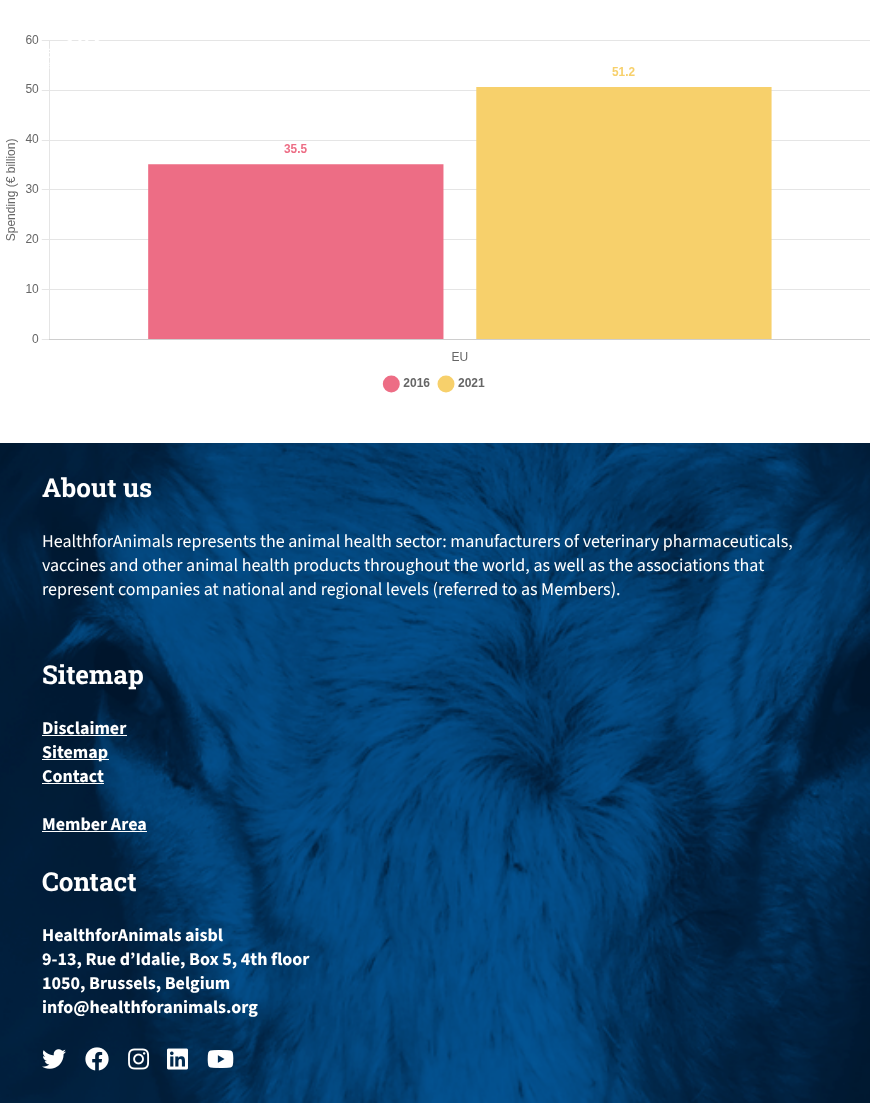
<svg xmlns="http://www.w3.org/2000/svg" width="870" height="1103">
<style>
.a{font:bold 26px Roboto Slab;fill:#fff}
.b{font:18px 'Source Sans 3';fill:#fff}
.c{font:bold 18px 'Source Sans 3';fill:#fff}
</style>
<rect width="100%" height="100%" fill="#fff"/>
<image href="1.png" x="6" y="35" width="864" height="358"/>
<image href="2.png" x="49" y="40" width="51" height="29"/>
<image href="3.png" x="0" y="443" width="870" height="660"/>
<path fill="#fff" d="M42 735h85v1H42z"/>
<path fill="#fff" d="M42 759h67v1H42z"/>
<path fill="#fff" d="M42 783h62v1H42z"/>
<path fill="#fff" d="M42 831h105v1H42z"/>
<image href="4.png" x="42" y="1049" width="24" height="20"/>
<image href="5.png" x="85" y="1047" width="24" height="24"/>
<image href="6.png" x="128" y="1048" width="22" height="22"/>
<image href="7.png" x="167" y="1048" width="21" height="22"/>
<image href="8.png" x="207" y="1050" width="27" height="18"/>
<text class="a" x="42" y="497">About us</text>
<text class="b" x="42" y="547">HealthforAnimals represents the animal health sector: manufacturers of veterinary pharmaceuticals,</text>
<text class="b" x="42" y="571">vaccines and other animal health products throughout the world, as well as the associations that</text>
<text class="b" x="42" y="595">represent companies at national and regional levels (referred to as Members).</text>
<text class="a" x="42" y="684">Sitemap</text>
<text class="c" x="42" y="734">Disclaimer</text>
<text class="c" x="42" y="758">Sitemap</text>
<text class="c" x="42" y="782">Contact</text>
<text class="c" x="42" y="830">Member Area</text>
<text class="a" x="42" y="891">Contact</text>
<text class="c" x="42" y="941">HealthforAnimals aisbl</text>
<text class="c" x="42" y="965">9-13, Rue d’Idalie, Box 5, 4th floor</text>
<text class="c" x="42" y="989">1050, Brussels, Belgium</text>
<text class="c" x="42" y="1013">info@healthforanimals.org</text>
</svg>
